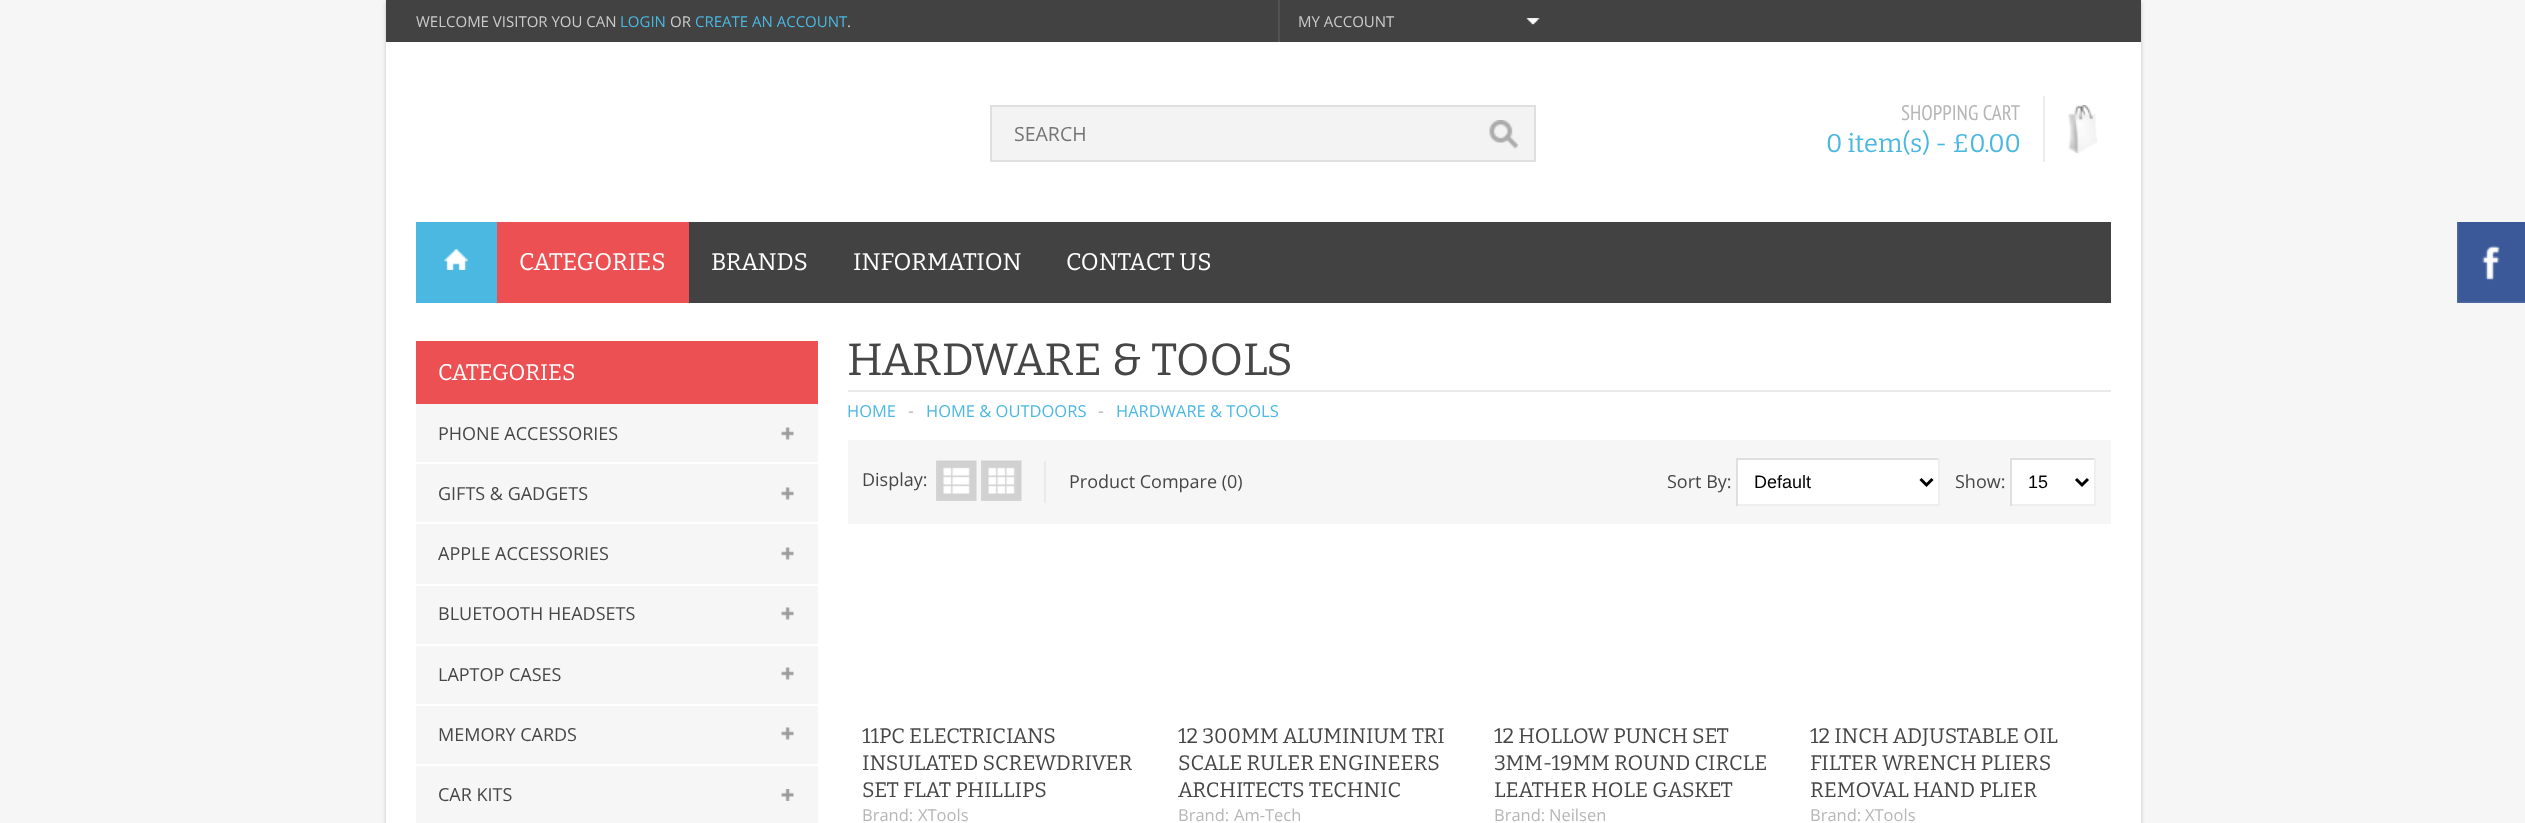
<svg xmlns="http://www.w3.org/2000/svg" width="2525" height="823">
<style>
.a{font:15px Open Sans;fill:#ccc}
.b{font:15px Open Sans;fill:#4bb8e2}
.c{font:19.5px Open Sans;fill:#757575}
.d{font:21px PT Sans Narrow;fill:#b6b6b6}
.e{font:100 25.5px Bitter;fill:#4bb8e2}
.f{font:100 24px Bitter;fill:#fff}
.g{font:100 22.5px Bitter;fill:#fff}
.h{font:18px Open Sans;fill:#464646}
.i{font:100 45px Bitter;fill:#464646}
.j{font:16.5px Open Sans;fill:#4bb8e2}
.k{font:18px Open Sans;fill:#b6b6b6}
.l{font:18px Liberation Sans;fill:#000}
.m{font:100 21px Bitter;fill:#464646}
.n{font:16.5px Open Sans;fill:#b6b6b6}
</style>
<rect width="100%" height="100%" fill="#f6f6f6"/>
<path fill="#00000033" filter="blur(2px)" d="M386 2h1755v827H386z"/>
<path fill="#fff" d="M386 42h1755v781H386z"/>
<path fill="#424242" d="M386 0h1755v42H386z"/>
<path fill="#525252" d="M1278 0h2v42H1278z"/>
<image href="1.png" x="1526" y="18" width="14" height="7"/>
<path fill="#f3f3f3" stroke="#dfdfdf" stroke-width="2" d="M991 106h544v55H991z"/>
<image href="2.png" x="1489" y="120" width="29" height="29"/>
<path fill="#ededed" d="M2043 96h2v66H2043z"/>
<image href="3.png" x="2068" y="105" width="29" height="48"/>
<path fill="#424242" d="M689 222h1422v81H689z"/>
<path fill="#4bb8e2" d="M416 222h81v81H416z"/>
<image href="4.png" x="444" y="249" width="24" height="21"/>
<path fill="#ed5053" d="M497 222h192v81H497z"/>
<path fill="#ed5053" d="M416 341h402v63H416z"/>
<path fill="#f6f6f6" d="M416 404h402v419H416z"/>
<image href="5.png" x="781" y="427" width="13" height="13"/>
<path fill="#fff" d="M416 462h402v2H416z"/>
<image href="5.png" x="781" y="487" width="13" height="13"/>
<path fill="#fff" d="M416 522h402v2H416z"/>
<image href="5.png" x="781" y="547" width="13" height="13"/>
<path fill="#fff" d="M416 584h402v2H416z"/>
<image href="5.png" x="781" y="607" width="13" height="13"/>
<path fill="#fff" d="M416 644h402v2H416z"/>
<image href="5.png" x="781" y="667" width="13" height="13"/>
<path fill="#fff" d="M416 704h402v2H416z"/>
<image href="5.png" x="781" y="727" width="13" height="13"/>
<path fill="#fff" d="M416 764h402v2H416z"/>
<image href="6.png" x="781" y="789" width="13" height="12"/>
<path fill="#eaeaea" d="M848 390h1263v2H848z"/>
<path fill="#f6f6f6" d="M848 440h1263v84H848z"/>
<image href="7.png" x="936" y="460" width="41" height="41"/>
<image href="8.png" x="981" y="460" width="41" height="41"/>
<path fill="#eaeaea" d="M1044 461h2v42H1044z"/>
<path fill="#fff" d="M1738 460h200v44H1738z"/>
<path fill="#dfdfdf" d="M1736 458h204v2H1736z"/>
<path fill="#efefef" d="M1938 458h2v48H1938z"/>
<path fill="#efefef" d="M1736 504h204v2H1736z"/>
<path fill="#dfdfdf" d="M1736 458h2v48H1736z"/>
<path fill="none" stroke="#000" stroke-width="3" d="M1920.5 479l6 6l6-6"/>
<path fill="#fff" d="M2012 460h82v44H2012z"/>
<path fill="#dfdfdf" d="M2010 458h86v2H2010z"/>
<path fill="#efefef" d="M2094 458h2v48H2094z"/>
<path fill="#efefef" d="M2010 504h86v2H2010z"/>
<path fill="#dfdfdf" d="M2010 458h2v48H2010z"/>
<path fill="none" stroke="#000" stroke-width="3" d="M2076 479l6 6l6-6"/>
<image href="9.png" x="2457" y="222" width="68" height="81"/>
<text class="a" x="416" y="27">WELCOME VISITOR YOU CAN</text>
<text class="b" x="620" y="27">LOGIN</text>
<text class="a" x="670" y="27">OR</text>
<text class="b" x="695" y="27">CREATE AN ACCOUNT</text>
<text class="a" x="847" y="27">.</text>
<text class="a" x="1298" y="27">MY ACCOUNT</text>
<text class="c" x="1014" y="141">SEARCH</text>
<text class="d" x="1901" y="120">SHOPPING CART</text>
<text class="e" x="1826" y="152">0 item(s) - £0.00</text>
<text class="f" x="519" y="270">CATEGORIES</text>
<text class="f" x="711" y="270">BRANDS</text>
<text class="f" x="853" y="270">INFORMATION</text>
<text class="f" x="1066" y="270">CONTACT US</text>
<text class="g" x="438" y="380">CATEGORIES</text>
<text class="h" x="438" y="440">PHONE ACCESSORIES</text>
<text class="h" x="438" y="500">GIFTS &amp; GADGETS</text>
<text class="h" x="438" y="560">APPLE ACCESSORIES</text>
<text class="h" x="438" y="620">BLUETOOTH HEADSETS</text>
<text class="h" x="438" y="681">LAPTOP CASES</text>
<text class="h" x="438" y="741">MEMORY CARDS</text>
<text class="h" x="438" y="801">CAR KITS</text>
<text class="i" x="847" y="375">HARDWARE &amp; TOOLS</text>
<text class="j" x="847" y="417">HOME</text>
<text class="k" x="908" y="417">-</text>
<text class="j" x="926" y="417">HOME &amp; OUTDOORS</text>
<text class="k" x="1098" y="417">-</text>
<text class="j" x="1116" y="417">HARDWARE &amp; TOOLS</text>
<text class="h" x="862" y="486">Display:</text>
<text class="h" x="1069" y="488">Product Compare (0)</text>
<text class="h" x="1667" y="488">Sort By:</text>
<text class="l" x="1754" y="488">Default</text>
<text class="h" x="1955" y="488">Show:</text>
<text class="l" x="2028" y="488">15</text>
<text class="m" x="862" y="743">11PC ELECTRICIANS</text>
<text class="m" x="862" y="770">INSULATED SCREWDRIVER</text>
<text class="m" x="862" y="797">SET FLAT PHILLIPS</text>
<text class="n" x="862" y="821">Brand:</text>
<text class="n" x="918" y="821">XTools</text>
<text class="m" x="1178" y="743">12 300MM ALUMINIUM TRI</text>
<text class="m" x="1178" y="770">SCALE RULER ENGINEERS</text>
<text class="m" x="1178" y="797">ARCHITECTS TECHNIC</text>
<text class="n" x="1178" y="821">Brand:</text>
<text class="n" x="1234" y="821">Am-Tech</text>
<text class="m" x="1494" y="743">12 HOLLOW PUNCH SET</text>
<text class="m" x="1494" y="770">3MM-19MM ROUND CIRCLE</text>
<text class="m" x="1494" y="797">LEATHER HOLE GASKET</text>
<text class="n" x="1494" y="821">Brand:</text>
<text class="n" x="1549" y="821">Neilsen</text>
<text class="m" x="1810" y="743">12 INCH ADJUSTABLE OIL</text>
<text class="m" x="1810" y="770">FILTER WRENCH PLIERS</text>
<text class="m" x="1810" y="797">REMOVAL HAND PLIER</text>
<text class="n" x="1810" y="821">Brand:</text>
<text class="n" x="1865" y="821">XTools</text>
</svg>
